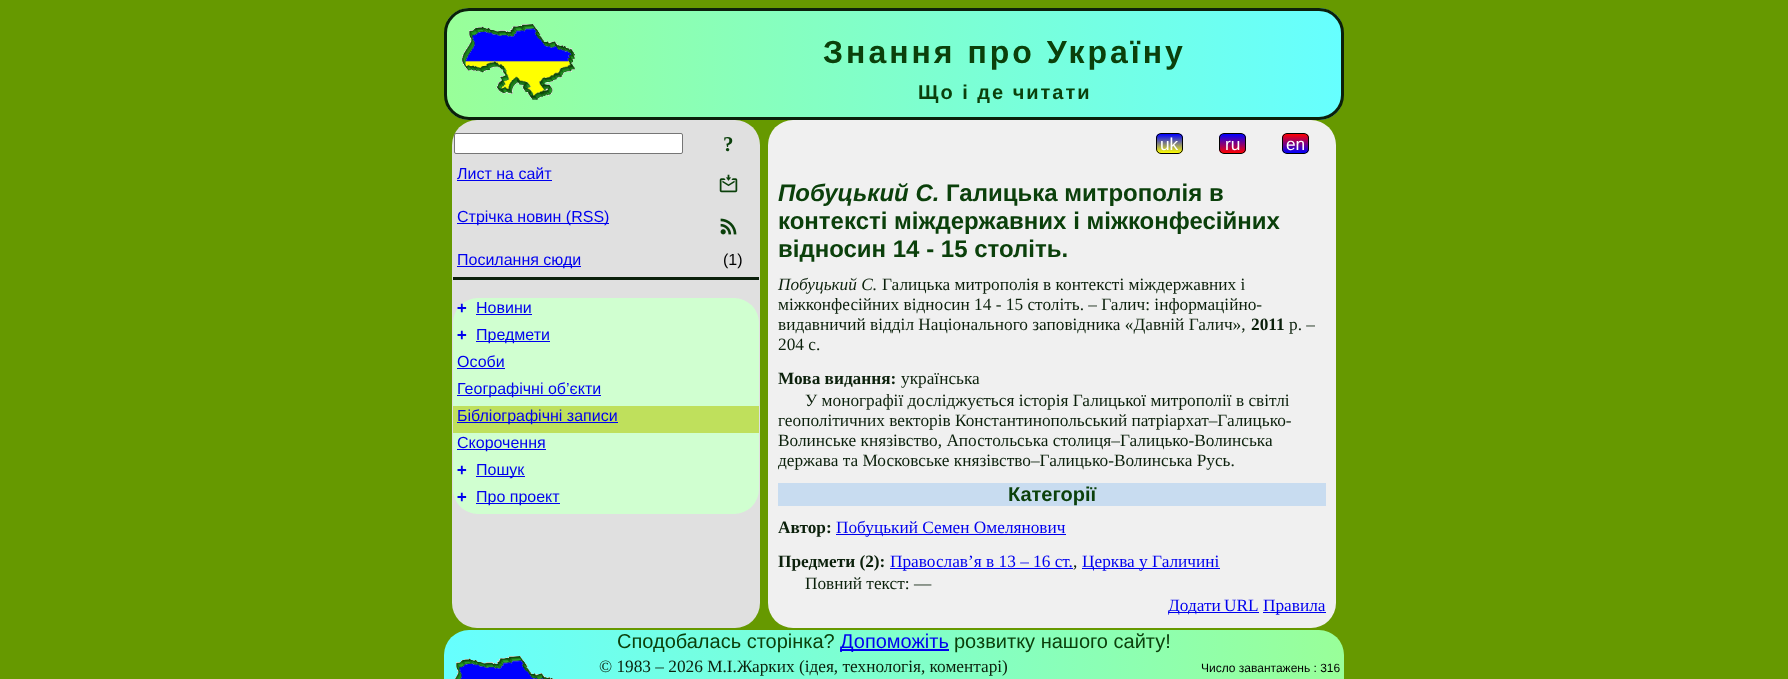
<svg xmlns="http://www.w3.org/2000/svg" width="1788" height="679">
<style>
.a{font:bold 32px Liberation Sans;letter-spacing:3px;fill:#0b400b}
.b{font:bold 20px Liberation Sans;letter-spacing:2px;fill:#0b400b}
.c{font:bold 21px Liberation Serif;fill:#0b400b}
.d{font:16px Liberation Sans;fill:#00e}
.e{font:16px Liberation Sans;fill:#000}
.f{font:bold 16px DejaVu Sans Mono;fill:#00e}
.g{font:17.3px Liberation Sans;fill:#fff}
.h{font:italic bold 24px Liberation Sans;fill:#0b400b}
.i{font:bold 24px Liberation Sans;fill:#0b400b}
.j{font:italic 17.3px Liberation Serif;fill:#0b200b}
.k{font:17.3px Liberation Serif;fill:#0b200b}
.l{font:bold 17.3px Liberation Serif;fill:#0b200b}
.m{font:bold 20px Liberation Sans;fill:#0b400b}
.n{font:17.3px Liberation Serif;fill:#00e}
.o{font:20px Liberation Sans;fill:#0b400b}
.p{font:20px Liberation Sans;fill:#00e}
.q{font:12px Liberation Sans;fill:#000}
</style>
<defs>
<clipPath id="clip1"><rect x="444" y="8" width="900" height="112" rx="25"/></clipPath>
<linearGradient id="g1" gradientUnits="userSpaceOnUse" x1="447" y1="64" x2="1341" y2="64"><stop offset="0" stop-color="#9f9"/><stop offset="1" stop-color="#6ff"/></linearGradient>
<clipPath id="clip2"><rect x="1156" y="133" width="27" height="21" rx="5"/></clipPath>
<linearGradient id="g2" gradientUnits="userSpaceOnUse" x1="1170" y1="134" x2="1170" y2="153"><stop offset="0" stop-color="#00f"/><stop offset="1" stop-color="#ff0"/></linearGradient>
<clipPath id="clip3"><rect x="1219" y="133" width="27" height="21" rx="5"/></clipPath>
<linearGradient id="g3" gradientUnits="userSpaceOnUse" x1="1233" y1="134" x2="1233" y2="153"><stop offset="0" stop-color="#00f"/><stop offset="1" stop-color="#f00"/></linearGradient>
<clipPath id="clip4"><rect x="1282" y="133" width="27" height="21" rx="5"/></clipPath>
<linearGradient id="g4" gradientUnits="userSpaceOnUse" x1="1296" y1="134" x2="1296" y2="153"><stop offset="0" stop-color="#f00"/><stop offset="1" stop-color="#00f"/></linearGradient>
<linearGradient id="g5" gradientUnits="userSpaceOnUse" x1="444" y1="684" x2="1344" y2="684"><stop offset="0" stop-color="#6ff"/><stop offset="1" stop-color="#9f9"/></linearGradient>
</defs>
<rect width="100%" height="100%" fill="#690"/>
<g clip-path="url(#clip1)">
<path fill="url(#g1)" d="M447 8h894v112H447z"/>
</g>
<rect fill="none" stroke="#0b200b" stroke-width="3" x="445.5" y="9.5" width="897" height="109" rx="23.5"/>
<image href="1.png" x="462" y="24" width="113" height="76"/>
<rect fill="#e0e0e0" x="452" y="120" width="308" height="508" rx="25"/>
<path fill="#0b200b" d="M453 277h306v3H453z"/>
<rect fill="#fff" stroke="#767676" x="454.5" y="133.5" width="228" height="20" rx="1.5"/>
<path fill="#00e" d="M457 180h95v1H457z"/>
<image href="2.png" x="719" y="174" width="19" height="19"/>
<path fill="#00e" d="M457 223h152v1H457z"/>
<image href="3.png" x="720" y="218" width="17" height="17"/>
<path fill="#00e" d="M457 266h124v1H457z"/>
<rect fill="#d0ffd0" x="453" y="298" width="306" height="216" rx="25"/>
<path fill="#00e" d="M476 314h56v1H476z"/>
<path fill="#00e" d="M476 341h74v1H476z"/>
<path fill="#00e" d="M457 368h48v1H457z"/>
<path fill="#00e" d="M457 395h144v1H457z"/>
<path fill="#bfe05c" d="M453 406h306v27H453z"/>
<path fill="#00e" d="M457 422h161v1H457z"/>
<path fill="#00e" d="M457 449h89v1H457z"/>
<path fill="#00e" d="M476 476h49v1H476z"/>
<path fill="#00e" d="M476 503h84v1H476z"/>
<rect fill="#f0f0f0" x="768" y="120" width="568" height="508" rx="25"/>
<g clip-path="url(#clip2)">
<path fill="url(#g2)" d="M1156 134h27v19H1156z"/>
</g>
<rect fill="none" stroke="#000" x="1156.5" y="133.5" width="26" height="20" rx="4.5"/>
<g clip-path="url(#clip3)">
<path fill="url(#g3)" d="M1219 134h27v19H1219z"/>
</g>
<rect fill="none" stroke="#000" x="1219.5" y="133.5" width="26" height="20" rx="4.5"/>
<g clip-path="url(#clip4)">
<path fill="url(#g4)" d="M1282 134h27v19H1282z"/>
</g>
<rect fill="none" stroke="#000" x="1282.5" y="133.5" width="26" height="20" rx="4.5"/>
<path fill="#c8dcf0" d="M778 483h548v23H778z"/>
<path fill="#00e" d="M836 534h230v1H836z"/>
<path fill="#00e" d="M890 568h183v1H890z"/>
<path fill="#00e" d="M1082 568h138v1H1082z"/>
<path fill="#00e" d="M1168 612h91v1H1168z"/>
<path fill="#00e" d="M1263 612h63v1H1263z"/>
<rect fill="url(#g5)" x="444" y="630" width="900" height="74" rx="25"/>
<path fill="#00e" d="M840 649h109v2H840z"/>
<image href="4.png" x="455" y="656" width="98" height="23"/>
<text class="a" x="823" y="63">Знання про Україну</text>
<text class="b" x="918" y="99">Що і де читати</text>
<text class="c" x="723" y="151">?</text>
<text class="d" x="457" y="179">Лист на сайт</text>
<text class="d" x="457" y="222">Стрічка новин (RSS)</text>
<text class="d" x="457" y="265">Посилання сюди</text>
<text class="e" x="723" y="265">(1)</text>
<text class="f" x="457" y="313">+</text>
<text class="d" x="476" y="313">Новини</text>
<text class="f" x="457" y="340">+</text>
<text class="d" x="476" y="340">Предмети</text>
<text class="d" x="457" y="367">Особи</text>
<text class="d" x="457" y="394">Географічні об’єкти</text>
<text class="d" x="457" y="421">Бібліографічні записи</text>
<text class="d" x="457" y="448">Скорочення</text>
<text class="f" x="457" y="475">+</text>
<text class="d" x="476" y="475">Пошук</text>
<text class="f" x="457" y="502">+</text>
<text class="d" x="476" y="502">Про проект</text>
<text class="g" x="1160" y="150">uk</text>
<text class="g" x="1225" y="150">ru</text>
<text class="g" x="1286" y="150">en</text>
<text class="h" x="778" y="201">Побуцький С.</text>
<text class="i" x="946" y="201">Галицька митрополія в</text>
<text class="i" x="778" y="229">контексті міждержавних і міжконфесійних</text>
<text class="i" x="778" y="257">відносин 14 - 15 століть.</text>
<text class="j" x="778" y="290">Побуцький С.</text>
<text class="k" x="882" y="290">Галицька митрополія в контексті міждержавних і</text>
<text class="k" x="778" y="310">міжконфесійних відносин 14 - 15 століть. – Галич: інформаційно-</text>
<text class="k" x="778" y="330">видавничий відділ Національного заповідника «Давній Галич»,</text>
<text class="l" x="1251" y="330">2011</text>
<text class="k" x="1289" y="330">р. –</text>
<text class="k" x="778" y="350">204 с.</text>
<text class="l" x="778" y="384">Мова видання:</text>
<text class="k" x="901" y="384">українська</text>
<text class="k" x="805" y="406">У монографії досліджується історія Галицької митрополії в світлі</text>
<text class="k" x="778" y="426">геополітичних векторів Константинопольський патріархат–Галицько-</text>
<text class="k" x="778" y="446">Волинське князівство, Апостольська столиця–Галицько-Волинська</text>
<text class="k" x="778" y="466">держава та Московське князівство–Галицько-Волинська Русь.</text>
<text class="m" x="1008" y="501">Категорії</text>
<text class="l" x="778" y="533">Автор:</text>
<text class="n" x="836" y="533">Побуцький Семен Омелянович</text>
<text class="l" x="778" y="567">Предмети (2):</text>
<text class="n" x="890" y="567">Православ’я в 13 – 16 ст.</text>
<text class="k" x="1073" y="567">,</text>
<text class="n" x="1082" y="567">Церква у Галичині</text>
<text class="k" x="805" y="589">Повний текст: —</text>
<text class="n" x="1168" y="611" word-spacing="-1">Додати URL</text>
<text class="n" x="1263" y="611">Правила</text>
<text class="o" x="617" y="648">Сподобалась сторінка?</text>
<text class="p" x="840" y="648">Допоможіть</text>
<text class="o" x="954" y="648">розвитку нашого сайту!</text>
<text class="k" x="599" y="672">© 1983 – 2026 М.І.Жарких (ідея, технологія, коментарі)</text>
<text class="q" x="1201" y="672">Число завантажень : 316</text>
</svg>
